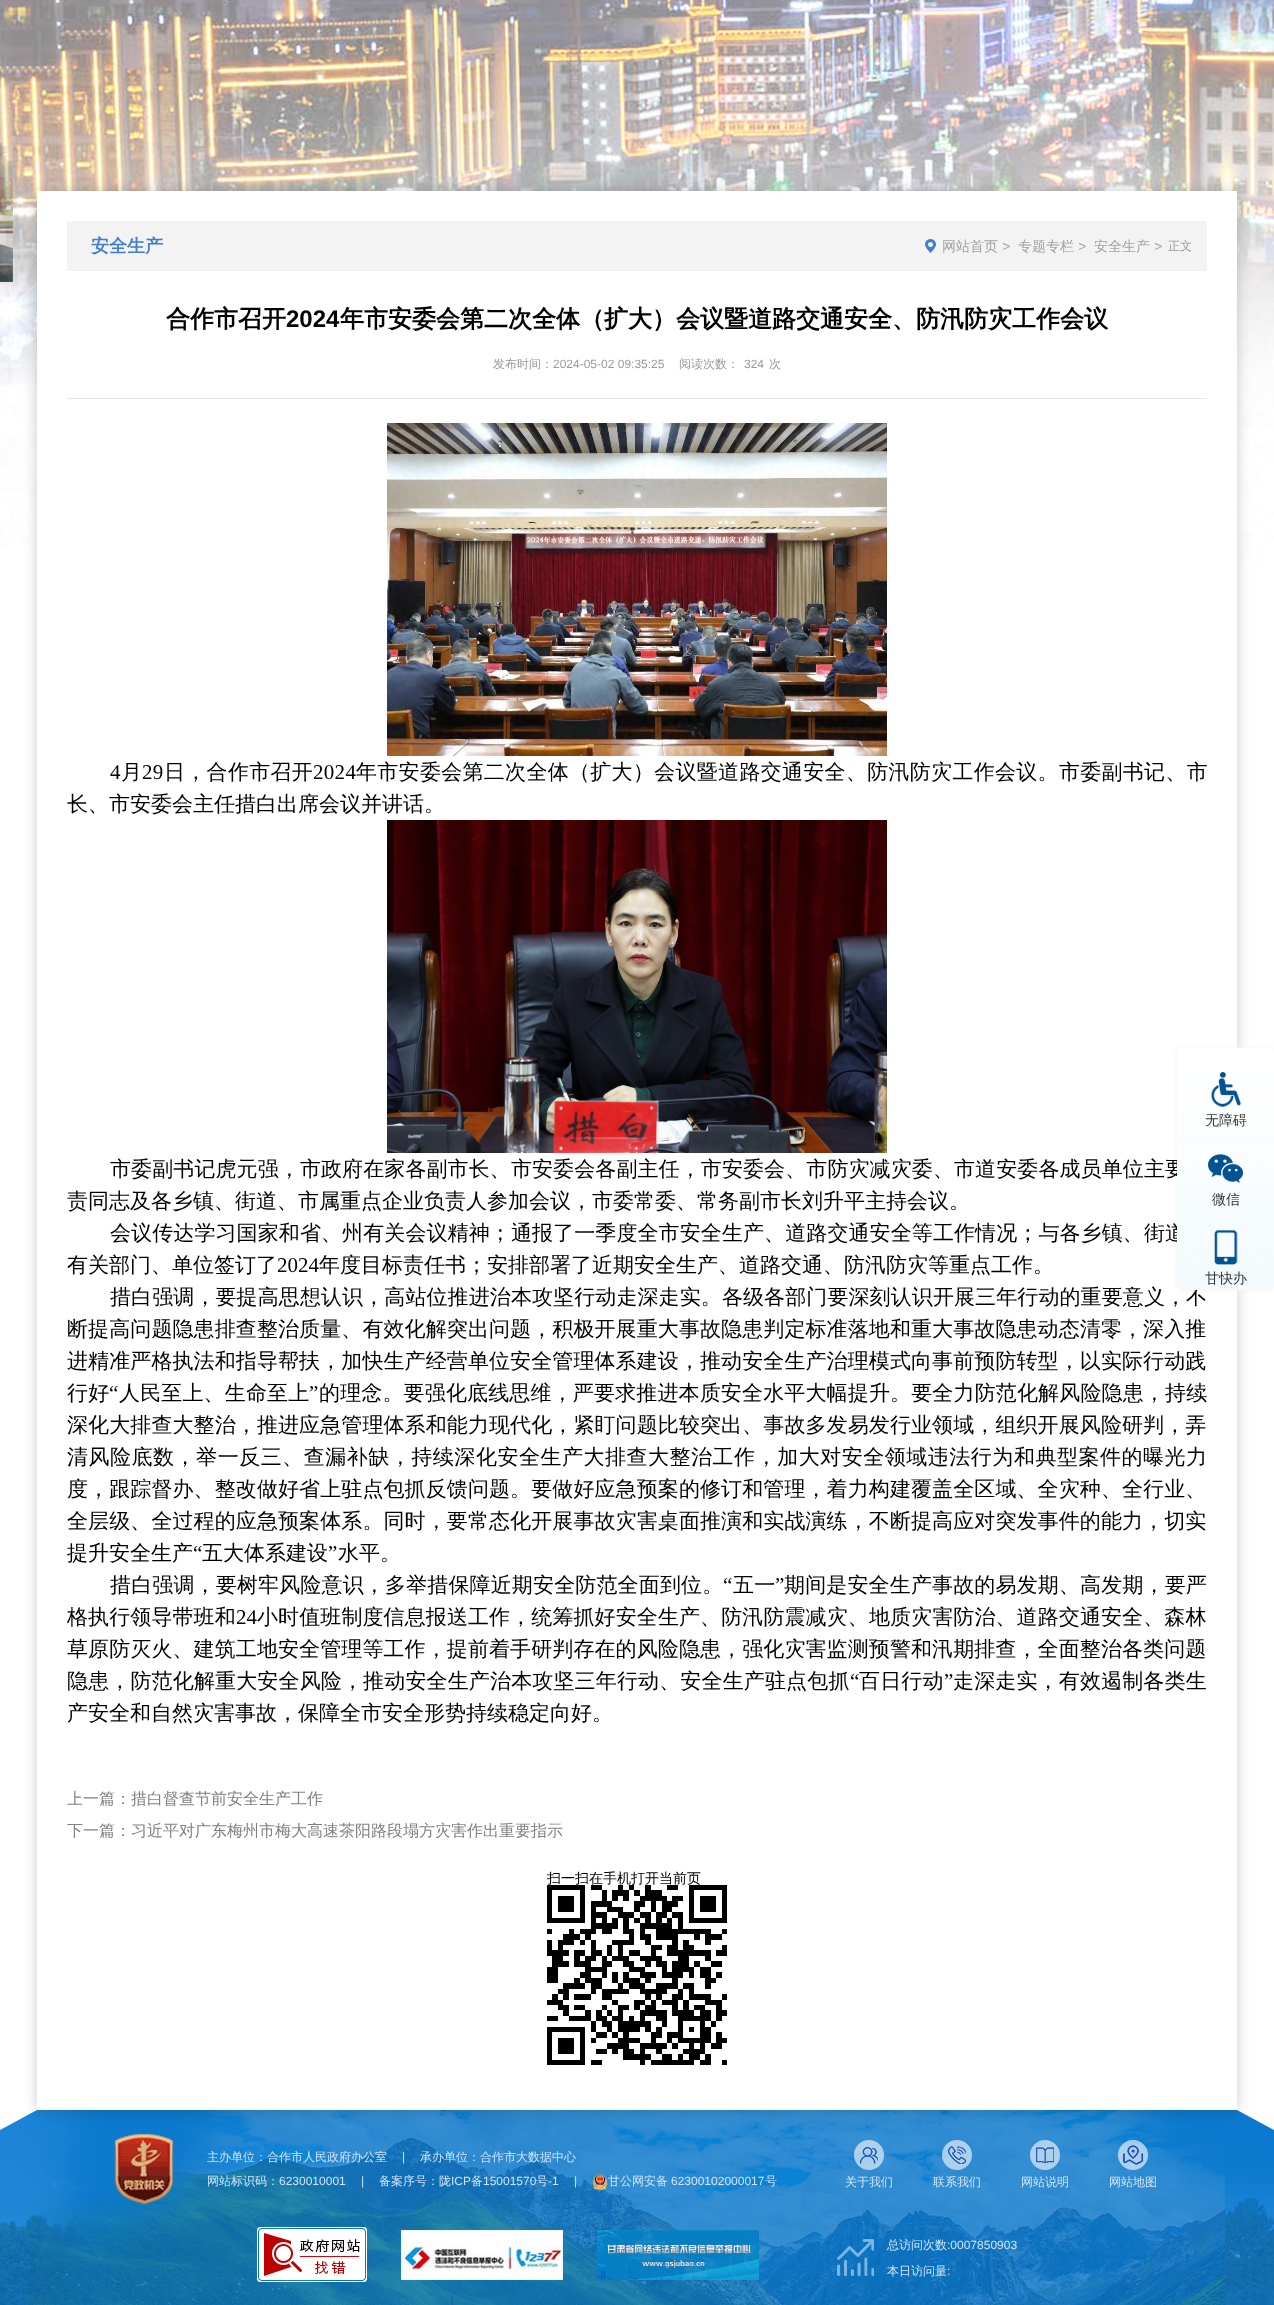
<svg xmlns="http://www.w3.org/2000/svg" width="1274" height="2305">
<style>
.a{font:bold 18px WenQuanYi Zen Hei;fill:#407ecf}
.b{font:500 14px WenQuanYi Zen Hei;fill:#a2a2a2}
.c{font:italic 14px Liberation Sans;fill:#a2a2a2}
.d{font:500 12px WenQuanYi Zen Hei;fill:#999}
.e{font:bold 24px WenQuanYi Zen Hei;fill:#000}
.f{font:bold 24px Liberation Sans;fill:#000}
.g{font:12px Liberation Sans;fill:#999}
.h{font:21px Liberation Serif;letter-spacing:0.3px;fill:#000}
.i{font:500 21px WenQuanYi Zen Hei;letter-spacing:0.3px;fill:#000}
.j{font:500 21px WenQuanYi Zen Hei;fill:#000}
.k{font:500 21px WenQuanYi Zen Hei;letter-spacing:0.1px;fill:#000}
.l{font:21px Liberation Serif;fill:#000}
.m{font:500 21px WenQuanYi Zen Hei;letter-spacing:0.15px;fill:#000}
.n{font:21px Liberation Serif;letter-spacing:0.15px;fill:#000}
.o{font:500 21px WenQuanYi Zen Hei;letter-spacing:0.52px;fill:#000}
.p{font:21px Liberation Serif;letter-spacing:0.1px;fill:#000}
.q{font:500 16px WenQuanYi Zen Hei;fill:#808080}
.r{font:500 14px WenQuanYi Zen Hei;fill:#000}
.s{font:500 12px WenQuanYi Zen Hei;fill:#cde5f8}
.t{font:12px Liberation Sans;fill:#cde5f8}
.u{font:500 14px WenQuanYi Zen Hei;fill:#333}
</style>
<rect width="100%" height="100%" fill="#fff"/>
<image href="1.png" x="0" y="0" width="1274" height="564"/>
<image href="6.png" x="0" y="2110" width="1274" height="195"/>
<path fill="#00000033" filter="blur(7px)" d="M37 191h1200v1919H37z"/>
<path fill="#fff" d="M37 191h1200v1919H37z"/>
<path fill="#f3f3f3" d="M67 221h1140v50H67z"/>
<image href="2.png" x="925" y="239" width="11" height="14"/>
<path fill="#e6e6e6" d="M67 398h1140v1H67z"/>
<image href="3.png" x="387" y="423" width="500" height="333"/>
<image href="4.png" x="387" y="820" width="500" height="333"/>
<image href="5.png" x="547" y="1885" width="180" height="180"/>
<image href="7.png" x="114" y="2133" width="60" height="72"/>
<image href="8.png" x="592" y="2174" width="16" height="16"/>
<image href="9.png" x="854" y="2140" width="30" height="30"/>
<image href="10.png" x="942" y="2140" width="30" height="30"/>
<image href="11.png" x="1030" y="2140" width="30" height="30"/>
<image href="12.png" x="1118" y="2140" width="30" height="30"/>
<image href="13.png" x="257" y="2227" width="110" height="55"/>
<image href="14.png" x="401" y="2230" width="162" height="50"/>
<image href="15.png" x="597" y="2230" width="162" height="50"/>
<image href="16.png" x="837" y="2239" width="37" height="37"/>
<rect fill="#f3f3f3" filter="blur(2.5px)" x="1177" y="1048" width="97" height="242" rx="5"/>
<text class="a" x="91" y="252">安全生产</text>
<text class="b" x="942" y="251">网站首页</text>
<text class="c" x="1002" y="251">&gt;</text>
<text class="b" x="1018" y="251">专题专栏</text>
<text class="c" x="1078" y="251">&gt;</text>
<text class="b" x="1094" y="251">安全生产</text>
<text class="c" x="1154" y="251">&gt;</text>
<text class="d" x="1168" y="250">正文</text>
<text class="e" x="166" y="327">合作市召开</text>
<text class="f" x="286" y="327">2024</text>
<text class="e" x="340" y="327">年市安委会第二次全体（扩大）会议暨道路交通安全、防汛防灾工作会议</text>
<text class="d" x="493" y="368">发布时间：</text>
<text class="g" x="553" y="368">2024-05-02 09:35:25</text>
<text class="d" x="679" y="368">阅读次数：</text>
<text class="g" x="744" y="368">324</text>
<text class="d" x="769" y="368">次</text>
<text class="h" x="110" y="779">4</text>
<text class="i" x="121" y="779">月</text>
<text class="h" x="142" y="779">29</text>
<text class="i" x="164" y="779">日，合作市召开</text>
<text class="h" x="313" y="779">2024</text>
<text class="i" x="356" y="779">年市安委会第二次全体（扩大）会议暨道路交通安全、防汛防灾工作会议。市委副书记、市</text>
<text class="j" x="67" y="811">长、市安委会主任措白出席会议并讲话。</text>
<text class="k" x="110" y="1176">市委副书记虎元强，市政府在家各副市长、市安委会各副主任，市安委会、市防灾减灾委、市道安委各成员单位主要</text>
<text class="j" x="67" y="1208">责同志及各乡镇、街道、市属重点企业负责人参加会议，市委常委、常务副市长刘升平主持会议。</text>
<text class="k" x="110" y="1240">会议传达学习国家和省、州有关会议精神；通报了一季度全市安全生产、道路交通安全等工作情况；与各乡镇、街道</text>
<text class="j" x="67" y="1272">有关部门、单位签订了</text>
<text class="l" x="277" y="1272">2024</text>
<text class="j" x="319" y="1272">年度目标责任书；安排部署了近期安全生产、道路交通、防汛防灾等重点工作。</text>
<text class="k" x="110" y="1304">措白强调，要提高思想认识，高站位推进治本攻坚行动走深走实。各级各部门要深刻认识开展三年行动的重要意义，不</text>
<text class="k" x="67" y="1336">断提高问题隐患排查整治质量、有效化解突出问题，积极开展重大事故隐患判定标准落地和重大事故隐患动态清零，深入推</text>
<text class="k" x="67" y="1368">进精准严格执法和指导帮扶，加快生产经营单位安全管理体系建设，推动安全生产治理模式向事前预防转型，以实际行动践</text>
<text class="m" x="67" y="1400">行好</text>
<text class="n" x="109" y="1400">“</text>
<text class="m" x="119" y="1400">人民至上、生命至上</text>
<text class="n" x="309" y="1400">”</text>
<text class="m" x="319" y="1400">的理念。要强化底线思维，严要求推进本质安全水平大幅提升。要全力防范化解风险隐患，持续</text>
<text class="k" x="67" y="1432">深化大排查大整治，推进应急管理体系和能力现代化，紧盯问题比较突出、事故多发易发行业领域，组织开展风险研判，弄</text>
<text class="o" x="67" y="1464">清风险底数，举一反三、查漏补缺，持续深化安全生产大排查大整治工作，加大对安全领域违法行为和典型案件的曝光力</text>
<text class="k" x="67" y="1496">度，跟踪督办、整改做好省上驻点包抓反馈问题。要做好应急预案的修订和管理，着力构建覆盖全区域、全灾种、全行业、</text>
<text class="k" x="67" y="1528">全层级、全过程的应急预案体系。同时，要常态化开展事故灾害桌面推演和实战演练，不断提高应对突发事件的能力，切实</text>
<text class="j" x="67" y="1560">提升安全生产</text>
<text class="l" x="193" y="1560">“</text>
<text class="j" x="202" y="1560">五大体系建设</text>
<text class="l" x="328" y="1560">”</text>
<text class="j" x="338" y="1560">水平。</text>
<text class="m" x="110" y="1592">措白强调，要树牢风险意识，多举措保障近期安全防范全面到位。</text>
<text class="n" x="723" y="1592">“</text>
<text class="m" x="733" y="1592">五一</text>
<text class="n" x="775" y="1592">”</text>
<text class="m" x="784" y="1592">期间是安全生产事故的易发期、高发期，要严</text>
<text class="k" x="67" y="1624">格执行领导带班和</text>
<text class="p" x="236" y="1624">24</text>
<text class="k" x="257" y="1624">小时值班制度信息报送工作，统筹抓好安全生产、防汛防震减灾、地质灾害防治、道路交通安全、森林</text>
<text class="k" x="67" y="1656">草原防灭火、建筑工地安全管理等工作，提前着手研判存在的风险隐患，强化灾害监测预警和汛期排查，全面整治各类问题</text>
<text class="m" x="67" y="1688">隐患，防范化解重大安全风险，推动安全生产治本攻坚三年行动、安全生产驻点包抓</text>
<text class="n" x="850" y="1688">“</text>
<text class="m" x="859" y="1688">百日行动</text>
<text class="n" x="944" y="1688">”</text>
<text class="m" x="953" y="1688">走深走实，有效遏制各类生</text>
<text class="j" x="67" y="1720">产安全和自然灾害事故，保障全市安全形势持续稳定向好。</text>
<text class="q" x="67" y="1804">上一篇：措白督查节前安全生产工作</text>
<text class="q" x="67" y="1836">下一篇：习近平对广东梅州市梅大高速茶阳路段塌方灾害作出重要指示</text>
<text class="r" x="547" y="1883">扫一扫在手机打开当前页</text>
<text class="s" x="207" y="2161">主办单位：合作市人民政府办公室</text>
<text class="t" x="402" y="2161">|</text>
<text class="s" x="420" y="2161">承办单位：合作市大数据中心</text>
<text class="s" x="207" y="2185">网站标识码：</text>
<text class="t" x="279" y="2185">6230010001</text>
<text class="t" x="361" y="2185">|</text>
<text class="s" x="379" y="2185">备案序号：陇</text>
<text class="t" x="451" y="2185">ICP</text>
<text class="s" x="471" y="2185">备</text>
<text class="t" x="483" y="2185">15001570</text>
<text class="s" x="536" y="2185">号</text>
<text class="t" x="548" y="2185">-1</text>
<text class="t" x="574" y="2185">|</text>
<text class="s" x="608" y="2185">甘公网安备</text>
<text class="t" x="671" y="2185">62300102000017</text>
<text class="s" x="765" y="2185">号</text>
<text class="s" x="845" y="2186">关于我们</text>
<text class="s" x="933" y="2186">联系我们</text>
<text class="s" x="1021" y="2186">网站说明</text>
<text class="s" x="1109" y="2186">网站地图</text>
<text class="s" x="887" y="2249">总访问次数</text>
<text class="t" x="947" y="2249">:0007850903</text>
<text class="s" x="887" y="2275">本日访问量</text>
<text class="t" x="947" y="2275">:</text>
<image href="17.png" x="1177" y="1048" width="97" height="242"/>
<image href="18.png" x="1211" y="1072" width="30" height="35"/>
<text class="u" x="1205" y="1125">无障碍</text>
<image href="19.png" x="1208" y="1154" width="35" height="29"/>
<text class="u" x="1212" y="1204">微信</text>
<image href="20.png" x="1214" y="1230" width="24" height="35"/>
<text class="u" x="1205" y="1283">甘快办</text>
</svg>
